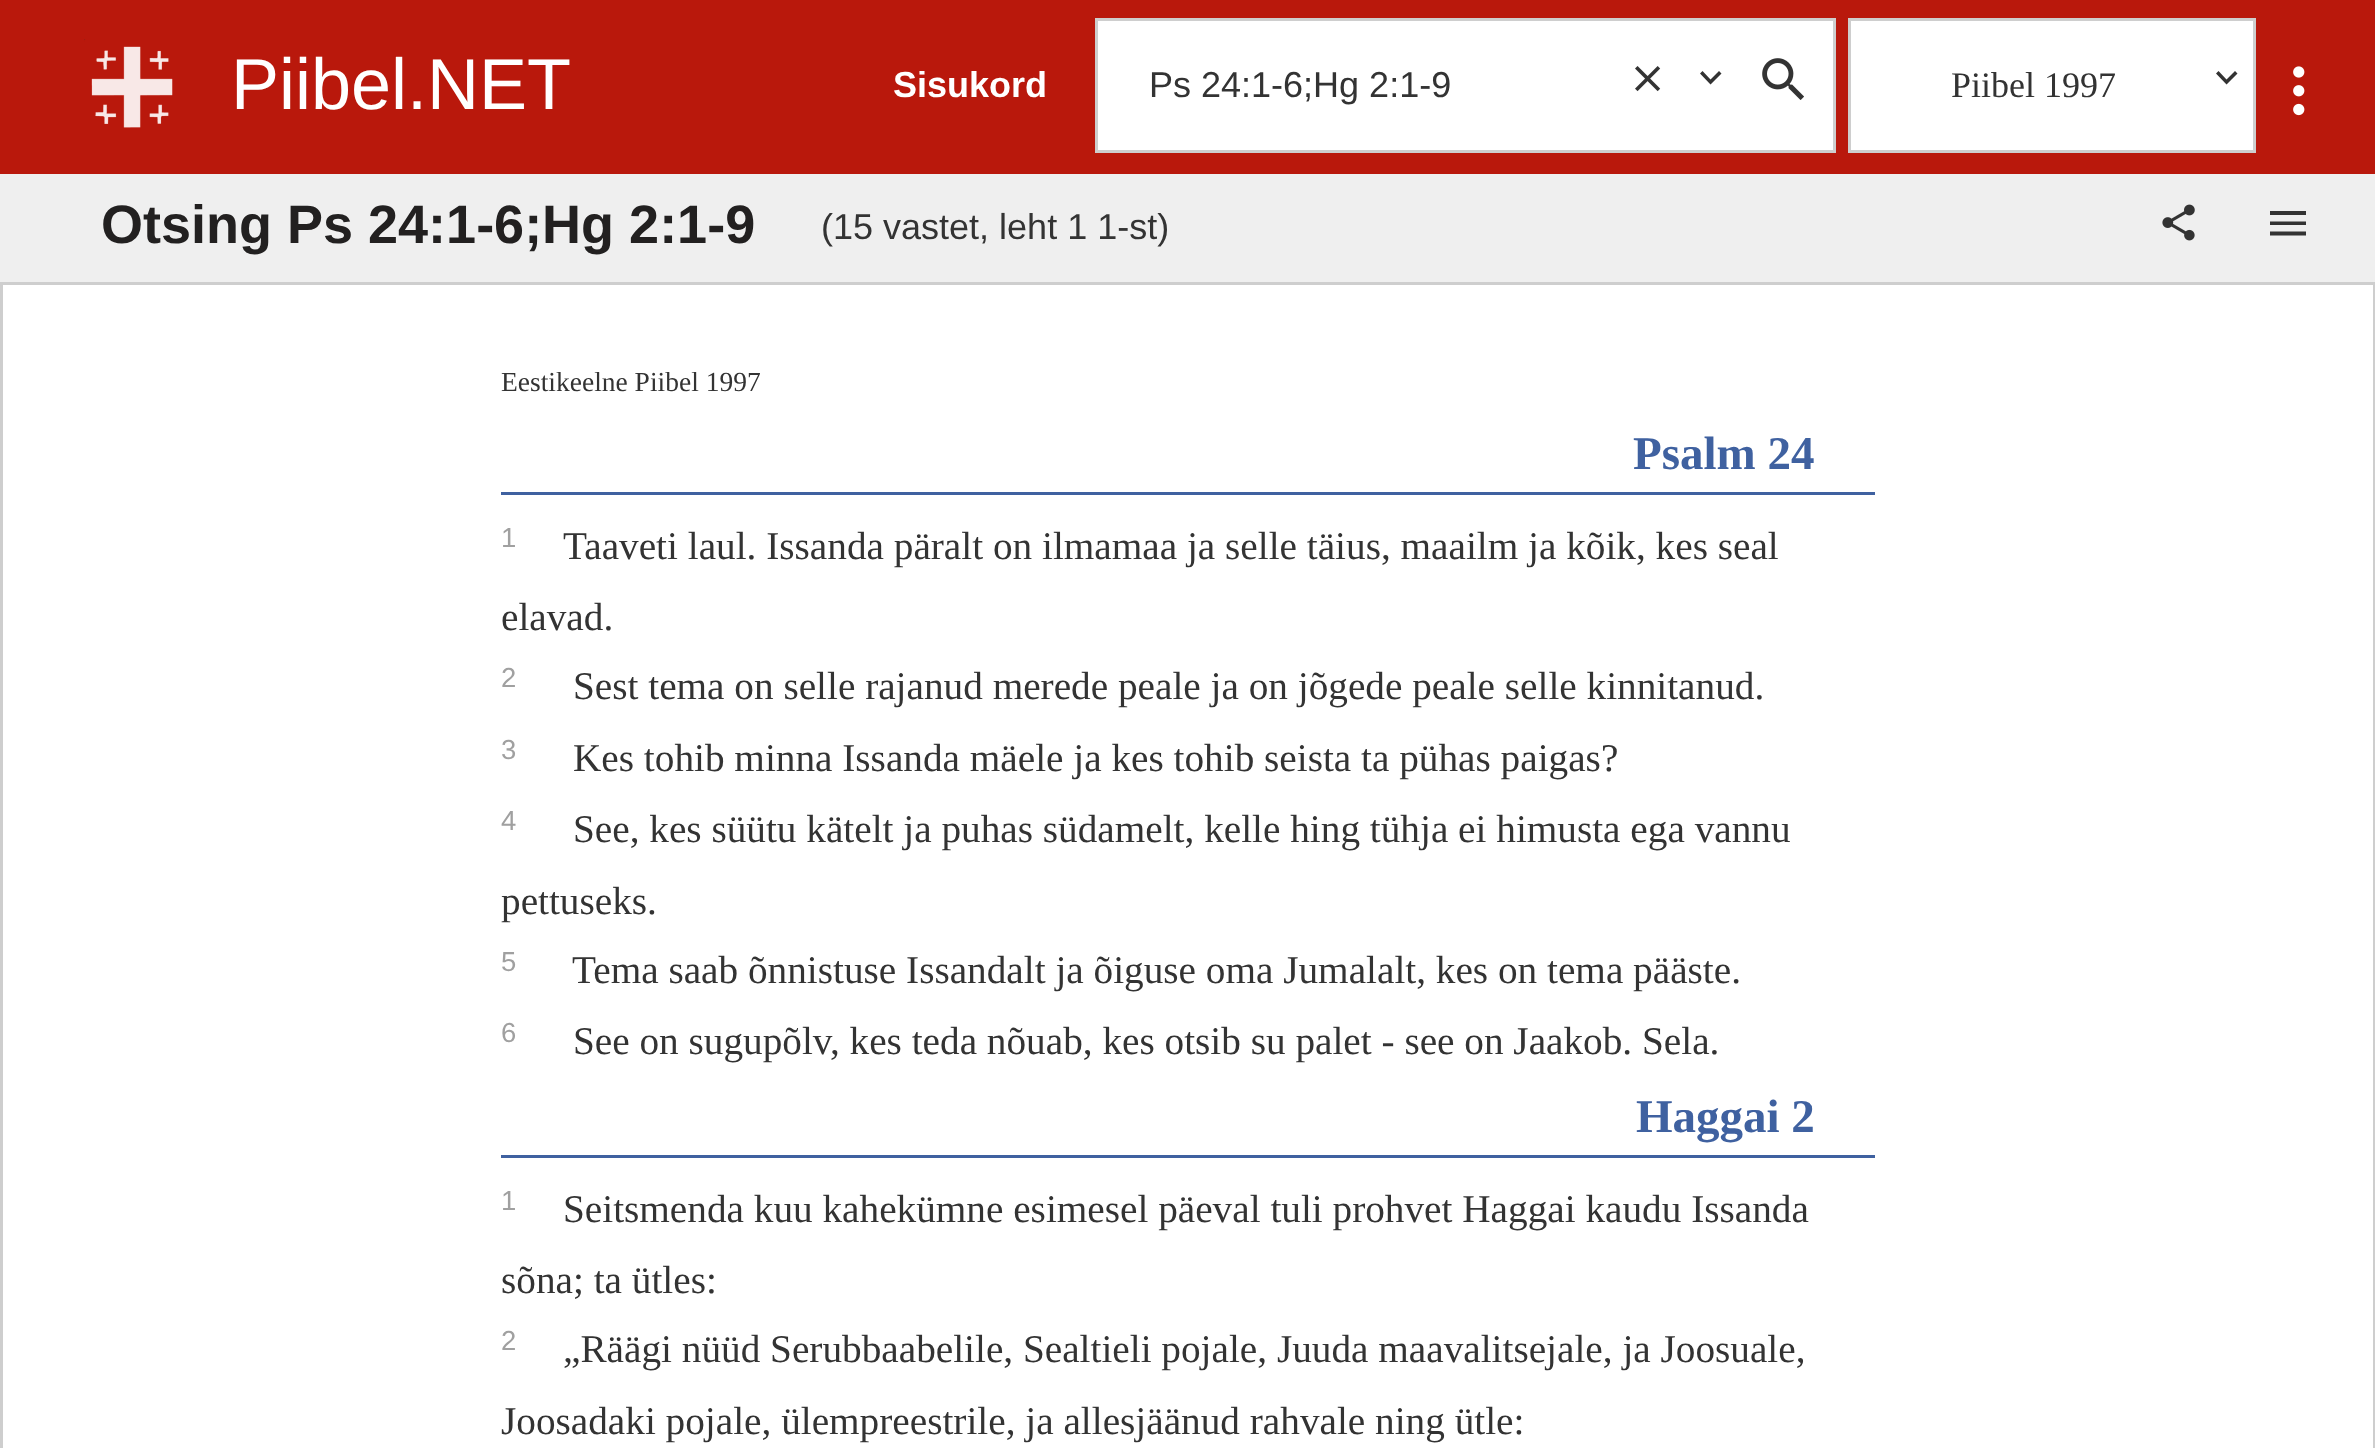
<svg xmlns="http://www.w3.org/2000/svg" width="2375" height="1448">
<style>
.a{font:72px Liberation Sans;fill:#fff}
.b{font:bold 36px Liberation Sans;fill:#fff}
.c{font:36px Liberation Sans;fill:#333}
.d{font:36px Liberation Serif;fill:#333}
.e{font:bold 54px Liberation Sans;fill:#222020}
.f{font:27.5px Liberation Serif;fill:#333}
.g{font:bold 47px Liberation Serif;fill:#3f61a0}
.h{font:27.5px Liberation Sans;fill:#a0a0a0}
.i{font:39.25px Liberation Serif;fill:#333}
</style>
<rect width="100%" height="100%" fill="#fff"/>
<path fill="#b9180c" d="M0 0h2375v174H0z"/>
<image href="1.png" x="84" y="39" width="89" height="89"/>
<path fill="#fff" stroke="#cecece" stroke-width="3" d="M1096.5 19.5h738v132H1096.5z"/>
<image href="2.png" x="1635" y="66" width="26" height="26"/>
<path fill="#333" d="M1702.5 71l8 8.5l8.5-8.5l2.5 2.5l-11 11l-10.5-11z"/>
<image href="3.png" x="1762" y="58" width="42" height="42"/>
<path fill="#fff" stroke="#cecece" stroke-width="3" d="M1849.5 19.5h405v132H1849.5z"/>
<path fill="#333" d="M2218.5 71l8 8.5l8.5-8.5l2.5 2.5l-11 11l-10.5-11z"/>
<image href="4.png" x="2293" y="66" width="12" height="50"/>
<path fill="#efefef" d="M0 174h2375v108H0z"/>
<path fill="#cecece" d="M0 282h2375v3H0z"/>
<image href="5.png" x="2162" y="204" width="33" height="37"/>
<path fill="#333" d="M2270 235.5h36v-4h-36zm0-10.5h36v-3.5h-36zm0-14v4h36v-4z"/>
<path fill="#cecece" d="M2373 285h2v1163H2373z"/>
<path fill="#cecece" d="M0 285h3v1163H0z"/>
<path fill="#3f61a0" d="M501 492h1374v3H501z"/>
<path fill="#3f61a0" d="M501 1155h1374v3H501z"/>
<text class="a" x="231" y="109">Piibel.NET</text>
<text class="b" x="893" y="97">Sisukord</text>
<text class="c" x="1149" y="97">Ps 24:1-6;Hg 2:1-9</text>
<text class="d" x="1951" y="97">Piibel 1997</text>
<text class="e" x="101" y="243">Otsing Ps 24:1-6;Hg 2:1-9</text>
<text class="c" x="821" y="239">(15 vastet, leht 1 1-st)</text>
<text class="f" x="501" y="391">Eestikeelne Piibel 1997</text>
<text class="g" x="1633" y="469">Psalm 24</text>
<text class="h" x="501" y="547">1</text>
<text class="i" x="563" y="559">Taaveti laul. Issanda päralt on ilmamaa ja selle täius, maailm ja kõik, kes seal</text>
<text class="i" x="501" y="630">elavad.</text>
<text class="h" x="501" y="687">2</text>
<text class="i" x="573" y="699">Sest tema on selle rajanud merede peale ja on jõgede peale selle kinnitanud.</text>
<text class="h" x="501" y="759">3</text>
<text class="i" x="573" y="771">Kes tohib minna Issanda mäele ja kes tohib seista ta pühas paigas?</text>
<text class="h" x="501" y="830">4</text>
<text class="i" x="573" y="842">See, kes süütu kätelt ja puhas südamelt, kelle hing tühja ei himusta ega vannu</text>
<text class="i" x="501" y="914">pettuseks.</text>
<text class="h" x="501" y="971">5</text>
<text class="i" x="572" y="983">Tema saab õnnistuse Issandalt ja õiguse oma Jumalalt, kes on tema pääste.</text>
<text class="h" x="501" y="1042">6</text>
<text class="i" x="573" y="1054">See on sugupõlv, kes teda nõuab, kes otsib su palet - see on Jaakob. Sela.</text>
<text class="g" x="1636" y="1132">Haggai 2</text>
<text class="h" x="501" y="1210">1</text>
<text class="i" x="563" y="1222">Seitsmenda kuu kahekümne esimesel päeval tuli prohvet Haggai kaudu Issanda</text>
<text class="i" x="501" y="1293">sõna; ta ütles:</text>
<text class="h" x="501" y="1350">2</text>
<text class="i" x="563" y="1362">„Räägi nüüd Serubbaabelile, Sealtieli pojale, Juuda maavalitsejale, ja Joosuale,</text>
<text class="i" x="501" y="1434">Joosadaki pojale, ülempreestrile, ja allesjäänud rahvale ning ütle:</text>
</svg>
